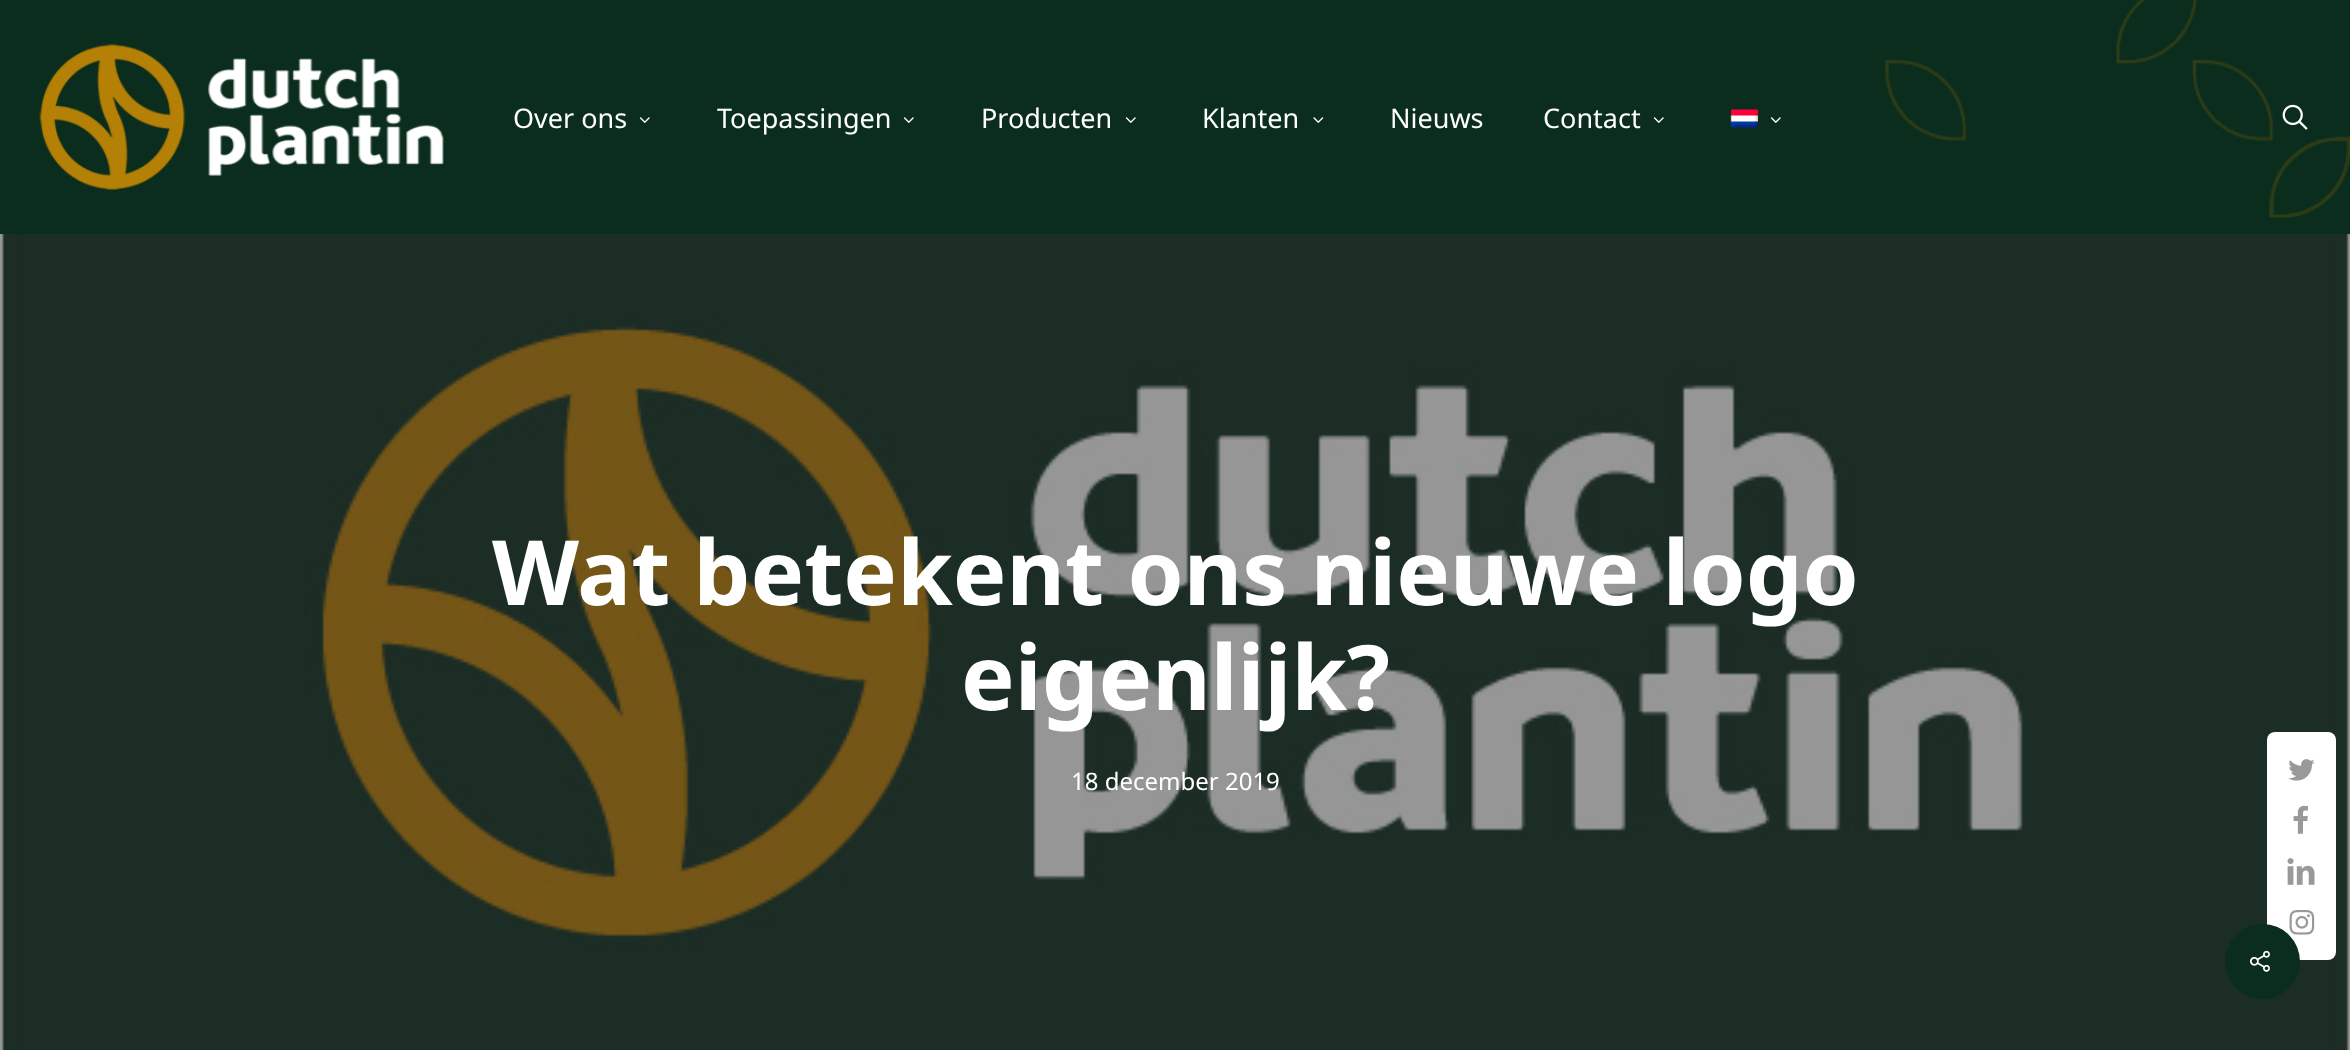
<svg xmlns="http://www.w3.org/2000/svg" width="2350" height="1050">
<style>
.a{font:27px Noto Sans;fill:#fff}
.b{font:bold 90px Noto Sans;fill:#fff}
.c{font:24px Noto Sans;fill:#fff}
</style>
<rect width="100%" height="100%" fill="#0b2d1d"/>
<image href="1.png" x="1885" y="0" width="465" height="218"/>
<image href="2.png" x="39" y="44" width="405" height="146"/>
<image href="3.png" x="639" y="117" width="11" height="6"/>
<image href="3.png" x="903" y="117" width="11" height="6"/>
<image href="3.png" x="1125" y="117" width="11" height="6"/>
<image href="4.png" x="1313" y="117" width="11" height="6"/>
<image href="3.png" x="1653" y="117" width="11" height="6"/>
<image href="5.png" x="1730" y="109" width="28" height="19"/>
<image href="3.png" x="1770" y="117" width="11" height="6"/>
<image href="6.png" x="2282" y="104" width="26" height="26"/>
<image href="7.png" x="0" y="234" width="2350" height="816"/>
<rect fill="#fff" x="2267" y="732" width="69" height="228" rx="8"/>
<image href="12.png" x="2289" y="909" width="26" height="26"/>
<circle fill="#0b2d1d" cx="2262.5" cy="961.5" r="37.5"/>
<image href="8.png" x="2250" y="950" width="20" height="22"/>
<image href="9.png" x="2288" y="759" width="27" height="22"/>
<image href="10.png" x="2293" y="805" width="16" height="29"/>
<image href="11.png" x="2287" y="858" width="28" height="27"/>
<text class="a" x="513" y="128">Over ons</text>
<text class="a" x="717" y="128">Toepassingen</text>
<text class="a" x="981" y="128">Producten</text>
<text class="a" x="1202" y="128">Klanten</text>
<text class="a" x="1390" y="128">Nieuws</text>
<text class="a" x="1543" y="128">Contact</text>
<text class="b" x="492" y="605">Wat betekent ons nieuwe logo</text>
<text class="b" x="961" y="710">eigenlijk?</text>
<text class="c" x="1071" y="790">18 december 2019</text>
</svg>
